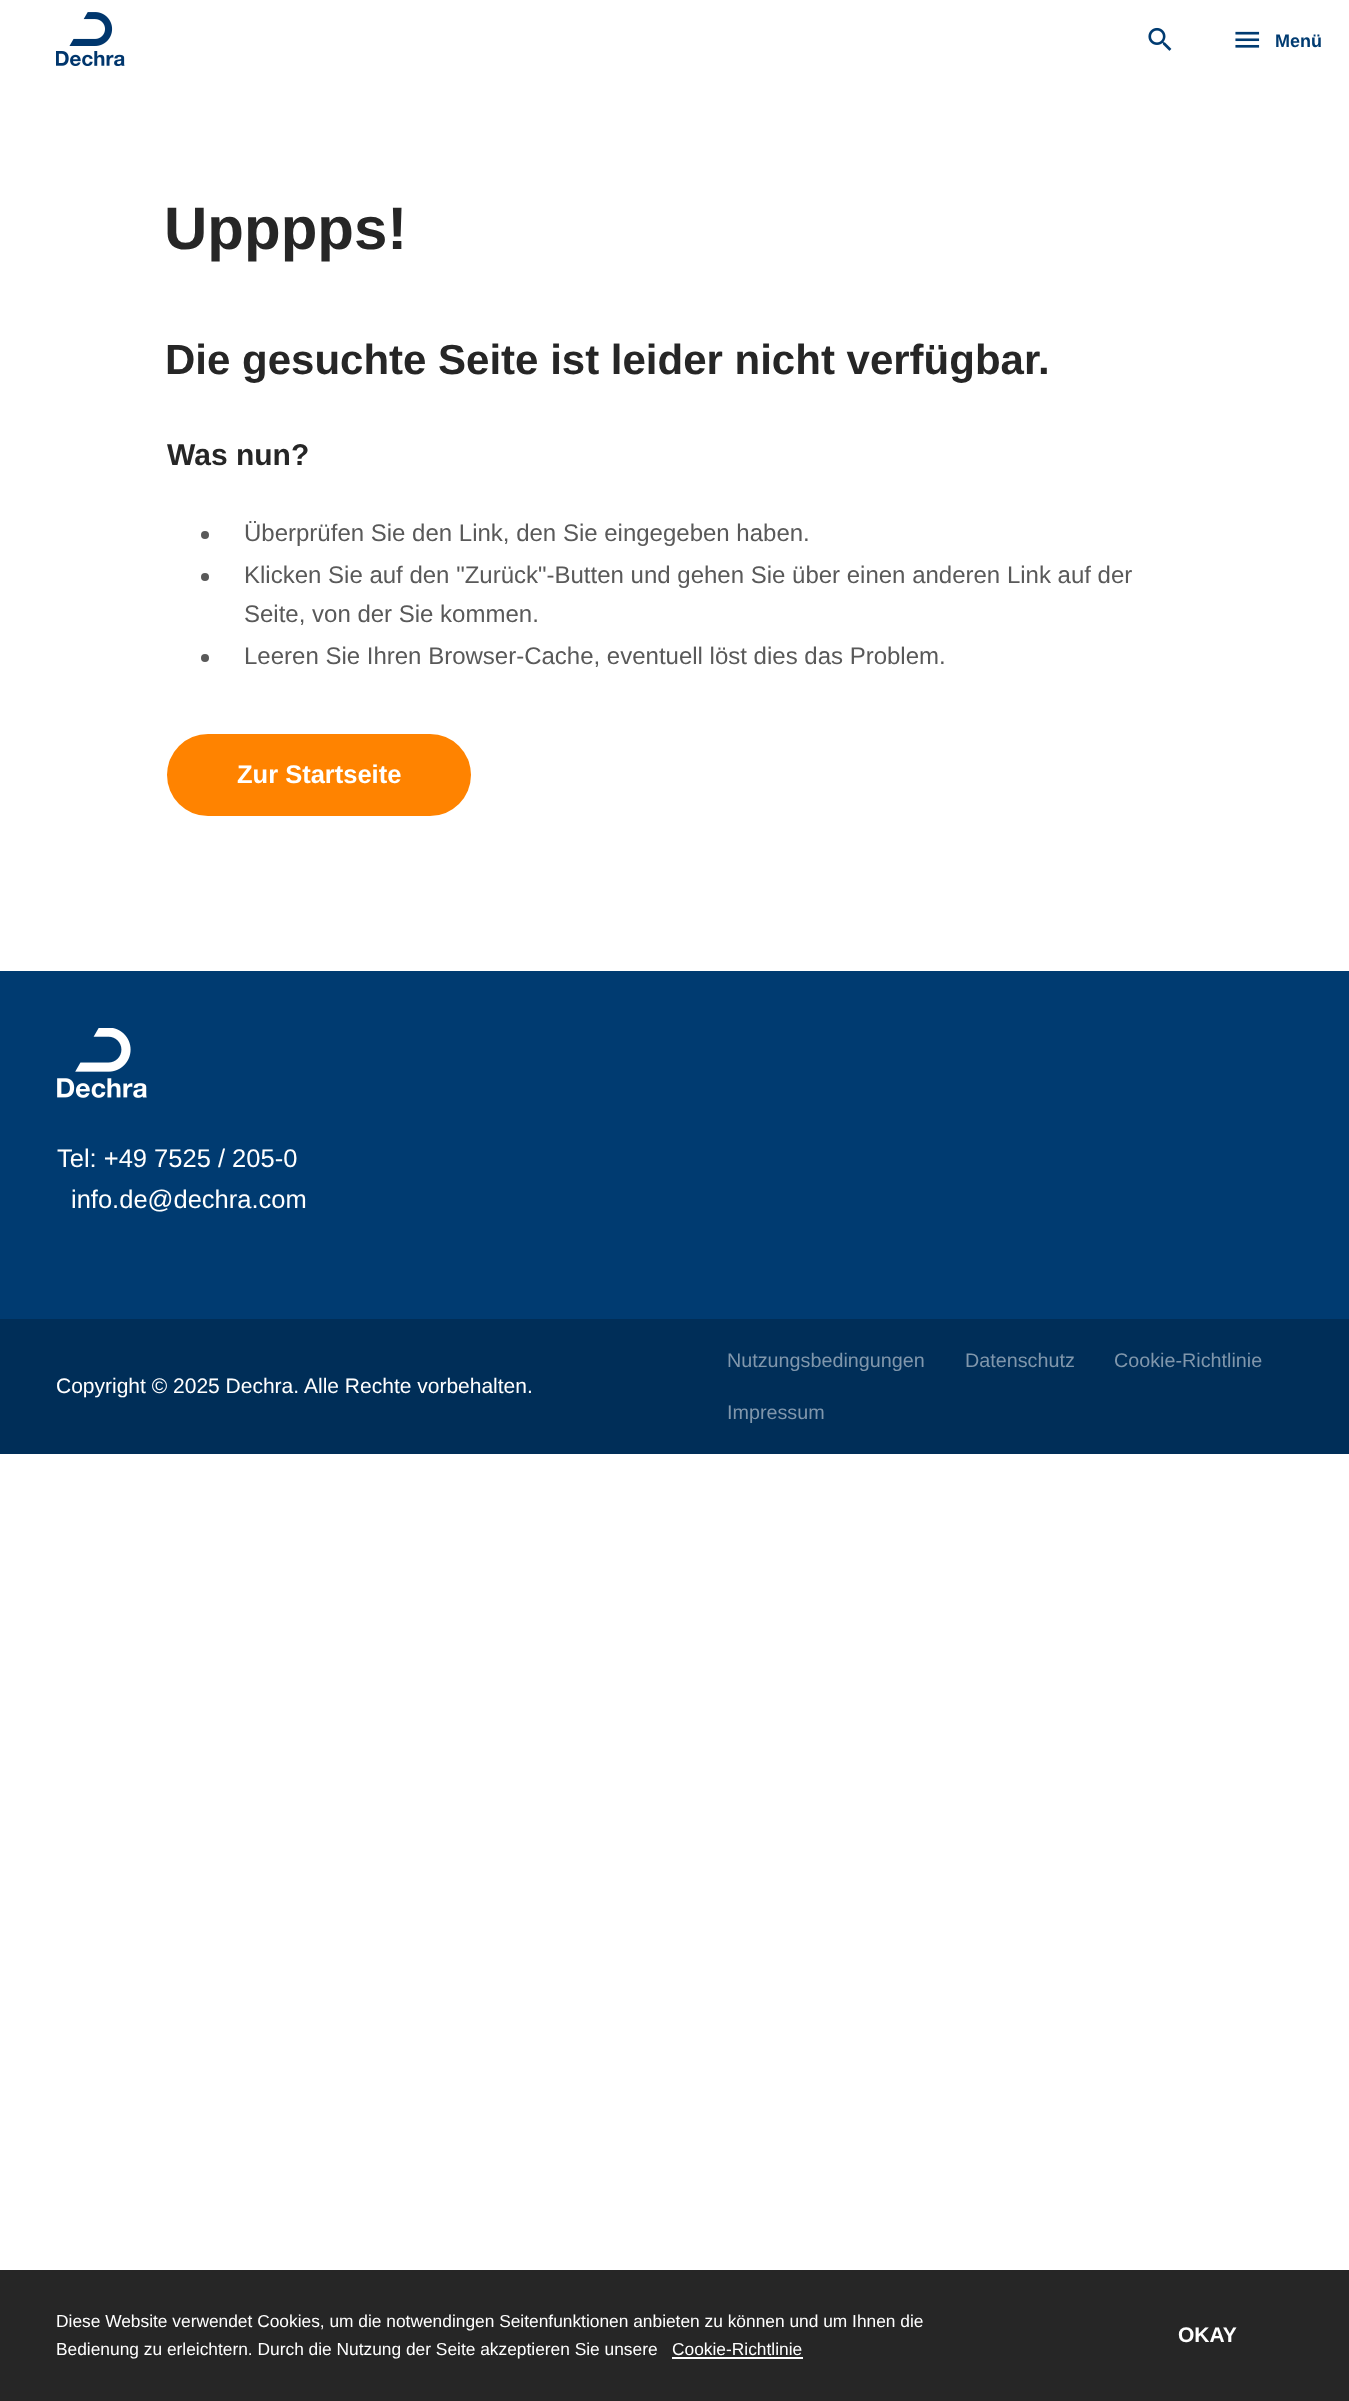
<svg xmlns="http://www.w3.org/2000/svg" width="1349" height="2401">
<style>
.a{font:bold 18px Liberation Sans;fill:#003b71}
.b{font:bold 60px Liberation Sans;fill:#262626}
.c{font:bold 42px Liberation Sans;fill:#262626}
.d{font:bold 30px Liberation Sans;fill:#262626}
.e{font:24px Liberation Sans;fill:#595959}
.f{font:bold 25.5px Liberation Sans;fill:#fff}
.g{font:25.5px Liberation Sans;fill:#fff}
.h{font:21px Liberation Sans;fill:#fff}
.i{font:19.75px Liberation Sans;fill:#8097ac}
.j{font:17.35px Liberation Sans;fill:#fff}
.k{font:bold 21px Liberation Sans;fill:#fff}
</style>
<rect width="100%" height="100%" fill="#fff"/>
<image href="1.png" x="56" y="12" width="69" height="54"/>
<image href="2.png" x="1148" y="27" width="24" height="24"/>
<image href="3.png" x="1235" y="31" width="25" height="17"/>
<circle fill="#595959" cx="205" cy="535" r="4"/>
<circle fill="#595959" cx="205" cy="577" r="4"/>
<circle fill="#595959" cx="205" cy="658" r="4"/>
<rect fill="#ff8300" x="167" y="734" width="304" height="82" rx="41"/>
<path fill="#003b71" d="M0 971h1349v348H0z"/>
<image href="4.png" x="57" y="1028" width="90" height="70"/>
<path fill="#002e58" d="M0 1319h1349v135H0z"/>
<path fill="#262626" d="M0 2270h1349v131H0z"/>
<path fill="#fff" d="M672 2357h131v2H672z"/>
<text class="a" x="1275" y="47">Menü</text>
<text class="b" x="164" y="249">Upppps!</text>
<text class="c" x="165" y="374">Die gesuchte Seite ist leider nicht verfügbar.</text>
<text class="d" x="167" y="465">Was nun?</text>
<text class="e" x="244" y="541">Überprüfen Sie den Link, den Sie eingegeben haben.</text>
<text class="e" x="244" y="583">Klicken Sie auf den "Zurück"-Butten und gehen Sie über einen anderen Link auf der</text>
<text class="e" x="244" y="622">Seite, von der Sie kommen.</text>
<text class="e" x="244" y="664">Leeren Sie Ihren Browser-Cache, eventuell löst dies das Problem.</text>
<text class="f" x="237" y="783">Zur Startseite</text>
<text class="g" x="57" y="1167">Tel: +49 7525 / 205-0</text>
<text class="g" x="71" y="1208">info.de@dechra.com</text>
<text class="h" x="56" y="1393">Copyright © 2025 Dechra.</text>
<text class="h" x="304" y="1393">Alle Rechte vorbehalten.</text>
<text class="i" x="727" y="1367">Nutzungsbedingungen</text>
<text class="i" x="965" y="1367">Datenschutz</text>
<text class="i" x="1114" y="1367">Cookie-Richtlinie</text>
<text class="i" x="727" y="1419">Impressum</text>
<text class="j" x="56" y="2327">Diese Website verwendet Cookies, um die notwendingen Seitenfunktionen anbieten zu können und um Ihnen die</text>
<text class="j" x="56" y="2355">Bedienung zu erleichtern. Durch die Nutzung der Seite akzeptieren Sie unsere</text>
<text class="j" x="672" y="2355">Cookie-Richtlinie</text>
<text class="k" x="1178" y="2342">OKAY</text>
</svg>
